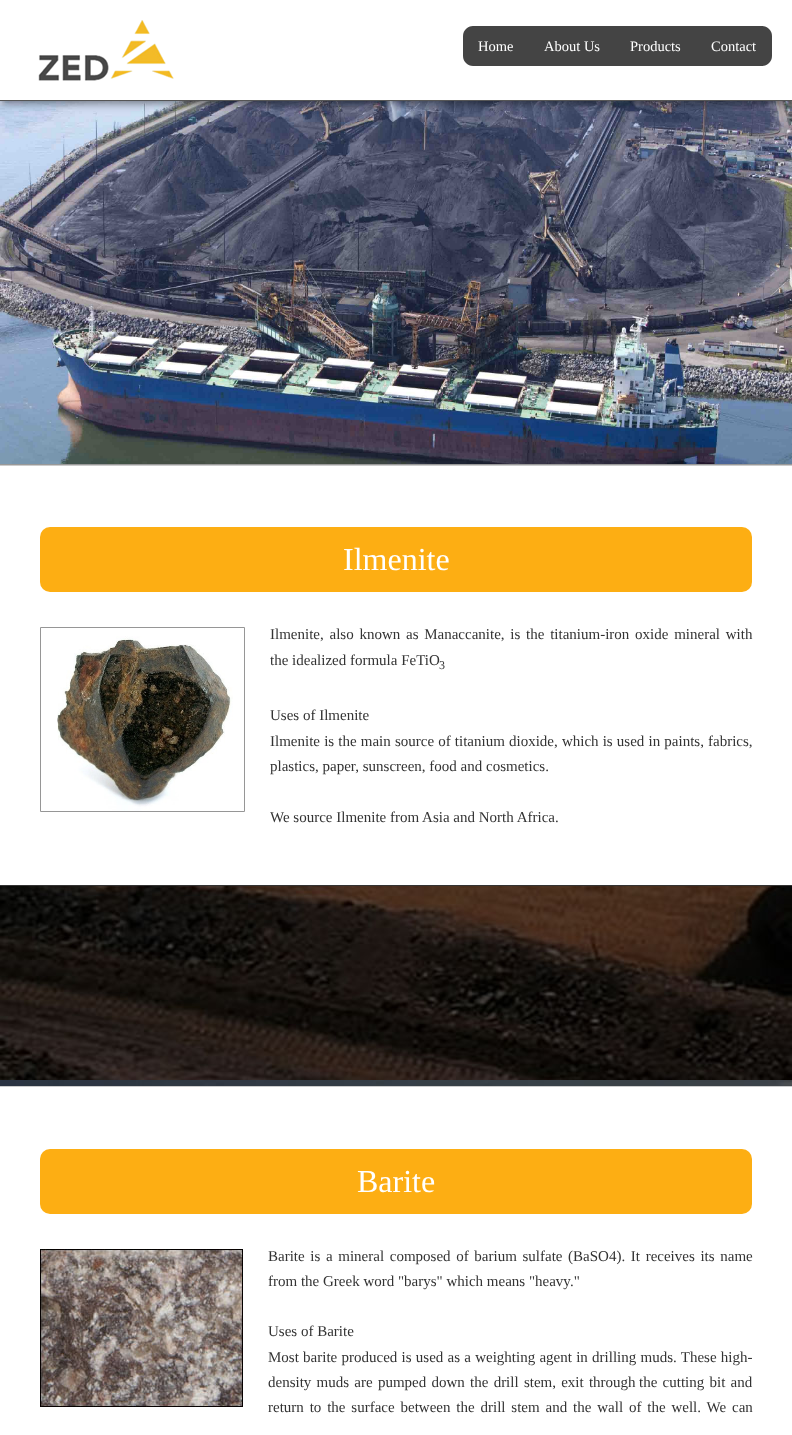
<svg xmlns="http://www.w3.org/2000/svg" width="792" height="1435">
<style>
.a{font:14.5px Liberation Serif;fill:#fff}
.b{font:32px Liberation Serif;fill:#fff}
.c{font:15px Liberation Serif;fill:#333}
.d{font:12px Liberation Serif;fill:#333}
</style>
<rect width="100%" height="100%" fill="#fff"/>
<image href="1.png" x="0" y="886" width="792" height="200"/>
<image href="3.png" x="0" y="101" width="792" height="363"/>
<path fill="#00000080" filter="blur(5px)" d="M1 4h790v99H1z"/>
<path fill="#fff" d="M0 0h792v100H0z"/>
<path fill="#555" d="M0 100h792v1H0z"/>
<image href="2.png" x="38" y="20" width="136" height="61"/>
<path fill="#444" d="M473 26h56v40h-56c-5.5 0-10-4.5-10-10v-20c0-5.5 4.5-10 10-10z"/>
<path fill="#444" d="M529 26h167v40H529z"/>
<path fill="#444" d="M696 26h66c5.5 0 10 4.5 10 10v20c0 5.5-4.5 10-10 10h-66z"/>
<path fill="#999" d="M0 464h792v1H0z"/>
<path fill="#ccc" d="M0 465h792v1H0z"/>
<path fill="#333" d="M0 885h792v1H0z"/>
<rect fill="#fdae13" x="40" y="527" width="712" height="65" rx="10"/>
<path fill="none" stroke="#969696" d="M40.5 627.5h204v184H40.5z"/>
<image href="4.png" x="57" y="636" width="176" height="175"/>
<path fill="#ccc" d="M0 1086h792v1H0z"/>
<rect fill="#fdae13" x="40" y="1149" width="712" height="65" rx="10"/>
<image href="5.png" x="40" y="1249" width="203" height="158"/>
<text class="a" x="478" y="51">Home</text>
<text class="a" x="544" y="51">About Us</text>
<text class="a" x="630" y="51">Products</text>
<text class="a" x="711" y="51">Contact</text>
<text class="b" x="343" y="570">Ilmenite</text>
<text class="c" x="270" y="639" word-spacing="2">Ilmenite, also known as Manaccanite, is the titanium-iron oxide mineral with</text>
<text class="c" x="270" y="665">the idealized formula FeTiO</text>
<text class="d" x="439" y="669">3</text>
<text class="c" x="270" y="720">Uses of Ilmenite</text>
<text class="c" x="270" y="746" word-spacing="0.4">Ilmenite is the main source of titanium dioxide, which is used in paints, fabrics,</text>
<text class="c" x="270" y="771">plastics, paper, sunscreen, food and cosmetics.</text>
<text class="c" x="270" y="822">We source Ilmenite from Asia and North Africa.</text>
<text class="b" x="357" y="1192">Barite</text>
<text class="c" x="268" y="1261" word-spacing="1.9">Barite is a mineral composed of barium sulfate (BaSO4). It receives its name</text>
<text class="c" x="268" y="1286">from the Greek word "barys" which means "heavy."</text>
<text class="c" x="268" y="1336">Uses of Barite</text>
<text class="c" x="268" y="1362" word-spacing="0.5">Most barite produced is used as a weighting agent in drilling muds. These high-</text>
<text class="c" x="268" y="1387" word-spacing="1.5">density muds are pumped down the drill stem, exit through</text>
<text class="c" x="639" y="1387" word-spacing="1.5">the cutting bit and</text>
<text class="c" x="268" y="1412" word-spacing="2.1">return to the surface between the drill stem and the wall of the well. We can</text>
</svg>
